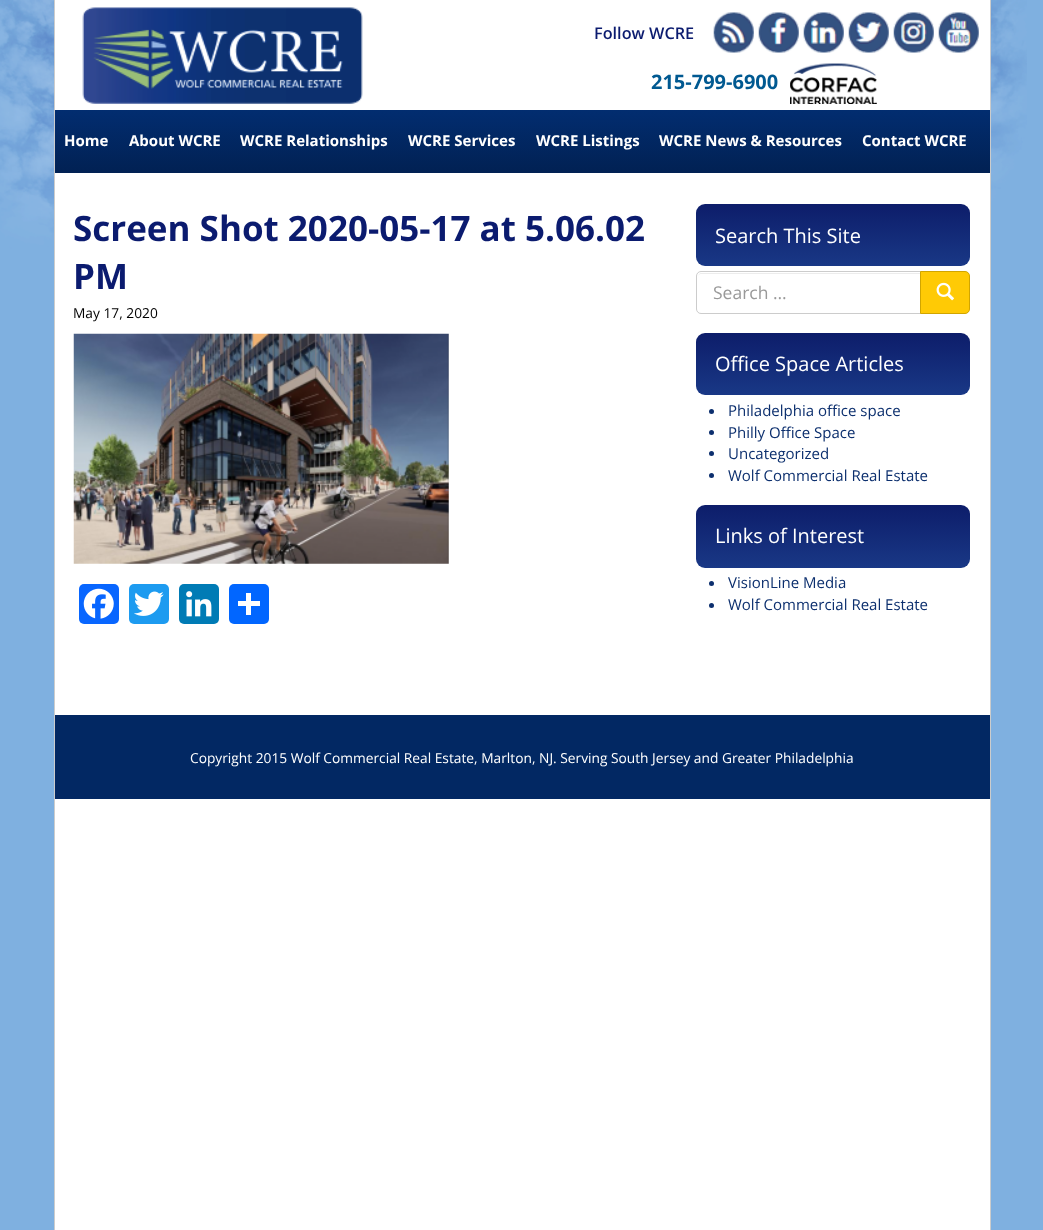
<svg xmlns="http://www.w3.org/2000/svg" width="1043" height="1230">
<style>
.a{font:600 16.25px Open Sans;fill:#0b1b6f}
.b{font:bold 20px Open Sans;fill:#005991}
.c{font:bold 15px Open Sans;fill:#fff}
.d{font:bold 35px Open Sans;fill:#0b1b6f}
.e{font:13.75px Open Sans;fill:#000}
.f{font:20px Open Sans;fill:#fff}
.g{font:17.5px Open Sans;fill:#999}
.h{font:15px Open Sans;fill:#0c2f6e}
.i{font:13.75px Open Sans;fill:#fff}
</style>
<defs>
<linearGradient id="g1" gradientUnits="userSpaceOnUse" x1="523" y1="110" x2="523" y2="173"><stop offset="0" stop-color="#022d70"/><stop offset="1" stop-color="#012153"/></linearGradient>
<linearGradient id="g2" gradientUnits="userSpaceOnUse" x1="833" y1="204" x2="833" y2="266"><stop offset="0" stop-color="#0d1d6a"/><stop offset="1" stop-color="#193886"/></linearGradient>
<linearGradient id="g3" gradientUnits="userSpaceOnUse" x1="833" y1="333" x2="833" y2="395"><stop offset="0" stop-color="#0d1d6a"/><stop offset="1" stop-color="#193886"/></linearGradient>
<linearGradient id="g4" gradientUnits="userSpaceOnUse" x1="833" y1="505" x2="833" y2="568"><stop offset="0" stop-color="#0d1d6a"/><stop offset="1" stop-color="#193886"/></linearGradient>
</defs>
<rect width="100%" height="100%" fill="#7fb0e0"/>
<image href="1.png" x="0" y="0" width="1027" height="262"/>
<path fill="#fff" d="M55 0h935v1230H55z"/>
<path fill="#ccc" d="M990 0h1v1230H990z"/>
<path fill="#ccc" d="M54 0h1v1230H54z"/>
<image href="2.png" x="82" y="7" width="281" height="97"/>
<image href="3.png" x="713" y="12" width="41" height="41"/>
<image href="4.png" x="758" y="12" width="41" height="41"/>
<image href="5.png" x="803" y="12" width="41" height="41"/>
<image href="6.png" x="848" y="12" width="41" height="41"/>
<image href="7.png" x="893" y="12" width="41" height="41"/>
<image href="8.png" x="938" y="12" width="41" height="41"/>
<image href="9.png" x="790" y="63" width="87" height="41"/>
<path fill="url(#g1)" d="M55 110h935v63H55z"/>
<image href="10.png" x="73" y="333" width="376" height="231"/>
<rect fill="#0866ff" x="79" y="584" width="40" height="40" rx="5"/>
<image href="11.png" x="83" y="588" width="31" height="31"/>
<rect fill="#1d9bf0" x="129" y="584" width="40" height="40" rx="5"/>
<image href="12.png" x="134" y="591" width="30" height="25"/>
<rect fill="#007bb5" x="179" y="584" width="40" height="40" rx="5"/>
<image href="13.png" x="186" y="591" width="26" height="26"/>
<rect fill="#0166ff" x="229" y="584" width="40" height="40" rx="5"/>
<path fill="#fff" d="M246 593h5v22H246z"/>
<path fill="#fff" d="M238 601h22v5H238z"/>
<rect fill="url(#g2)" x="696" y="204" width="274" height="62" rx="9"/>
<path fill="#ececec" d="M701 274h219v-1h-218c-3 0-4 2-4 5c0-3 1-4 3-4z"/>
<path fill="none" stroke="#ccc" d="M701 271.5h219.5v42h-219.5c-2.5 0-4.5-2-4.5-4.5v-33c0-2.5 2-4.5 4.5-4.5z"/>
<path fill="#ffca05" stroke="#d1a500" d="M920.5 271.5h44.5c2.5 0 4.5 2 4.5 4.5v33c0 2.5-2 4.5-4.5 4.5h-44.5z"/>
<image href="14.png" x="936" y="282" width="18" height="19"/>
<rect fill="url(#g3)" x="696" y="333" width="274" height="62" rx="9"/>
<circle fill="#0c2f6e" cx="711.5" cy="411.5" r="2.5"/>
<circle fill="#0c2f6e" cx="711.5" cy="432.5" r="2.5"/>
<circle fill="#0c2f6e" cx="711.5" cy="453.5" r="2.5"/>
<circle fill="#0c2f6e" cx="711.5" cy="475.5" r="2.5"/>
<rect fill="url(#g4)" x="696" y="505" width="274" height="63" rx="9"/>
<circle fill="#0c2f6e" cx="711.5" cy="583.5" r="2.5"/>
<circle fill="#0c2f6e" cx="711.5" cy="605.5" r="2.5"/>
<path fill="#022863" d="M55 715h935v84H55z"/>
<text class="a" x="594" y="39">Follow WCRE</text>
<text class="b" x="651" y="89">215-799-6900</text>
<text class="c" x="64" y="146">Home</text>
<text class="c" x="129" y="146">About WCRE</text>
<text class="c" x="240" y="146">WCRE Relationships</text>
<text class="c" x="408" y="146">WCRE Services</text>
<text class="c" x="536" y="146">WCRE Listings</text>
<text class="c" x="659" y="146">WCRE News &amp; Resources</text>
<text class="c" x="862" y="146">Contact WCRE</text>
<text class="d" x="73" y="241">Screen Shot 2020-05-17 at 5.06.02</text>
<text class="d" x="73" y="289">PM</text>
<text class="e" x="73" y="318">May 17, 2020</text>
<text class="f" x="715" y="243">Search This Site</text>
<text class="g" x="713" y="299">Search …</text>
<text class="f" x="715" y="371">Office Space Articles</text>
<text class="h" x="728" y="416">Philadelphia office space</text>
<text class="h" x="728" y="438">Philly Office Space</text>
<text class="h" x="728" y="459">Uncategorized</text>
<text class="h" x="728" y="481">Wolf Commercial Real Estate</text>
<text class="f" x="715" y="543">Links of Interest</text>
<text class="h" x="728" y="588">VisionLine Media</text>
<text class="h" x="728" y="610">Wolf Commercial Real Estate</text>
<text class="i" x="190" y="763">Copyright 2015 Wolf Commercial Real Estate, Marlton, NJ. Serving South Jersey and Greater Philadelphia</text>
</svg>
